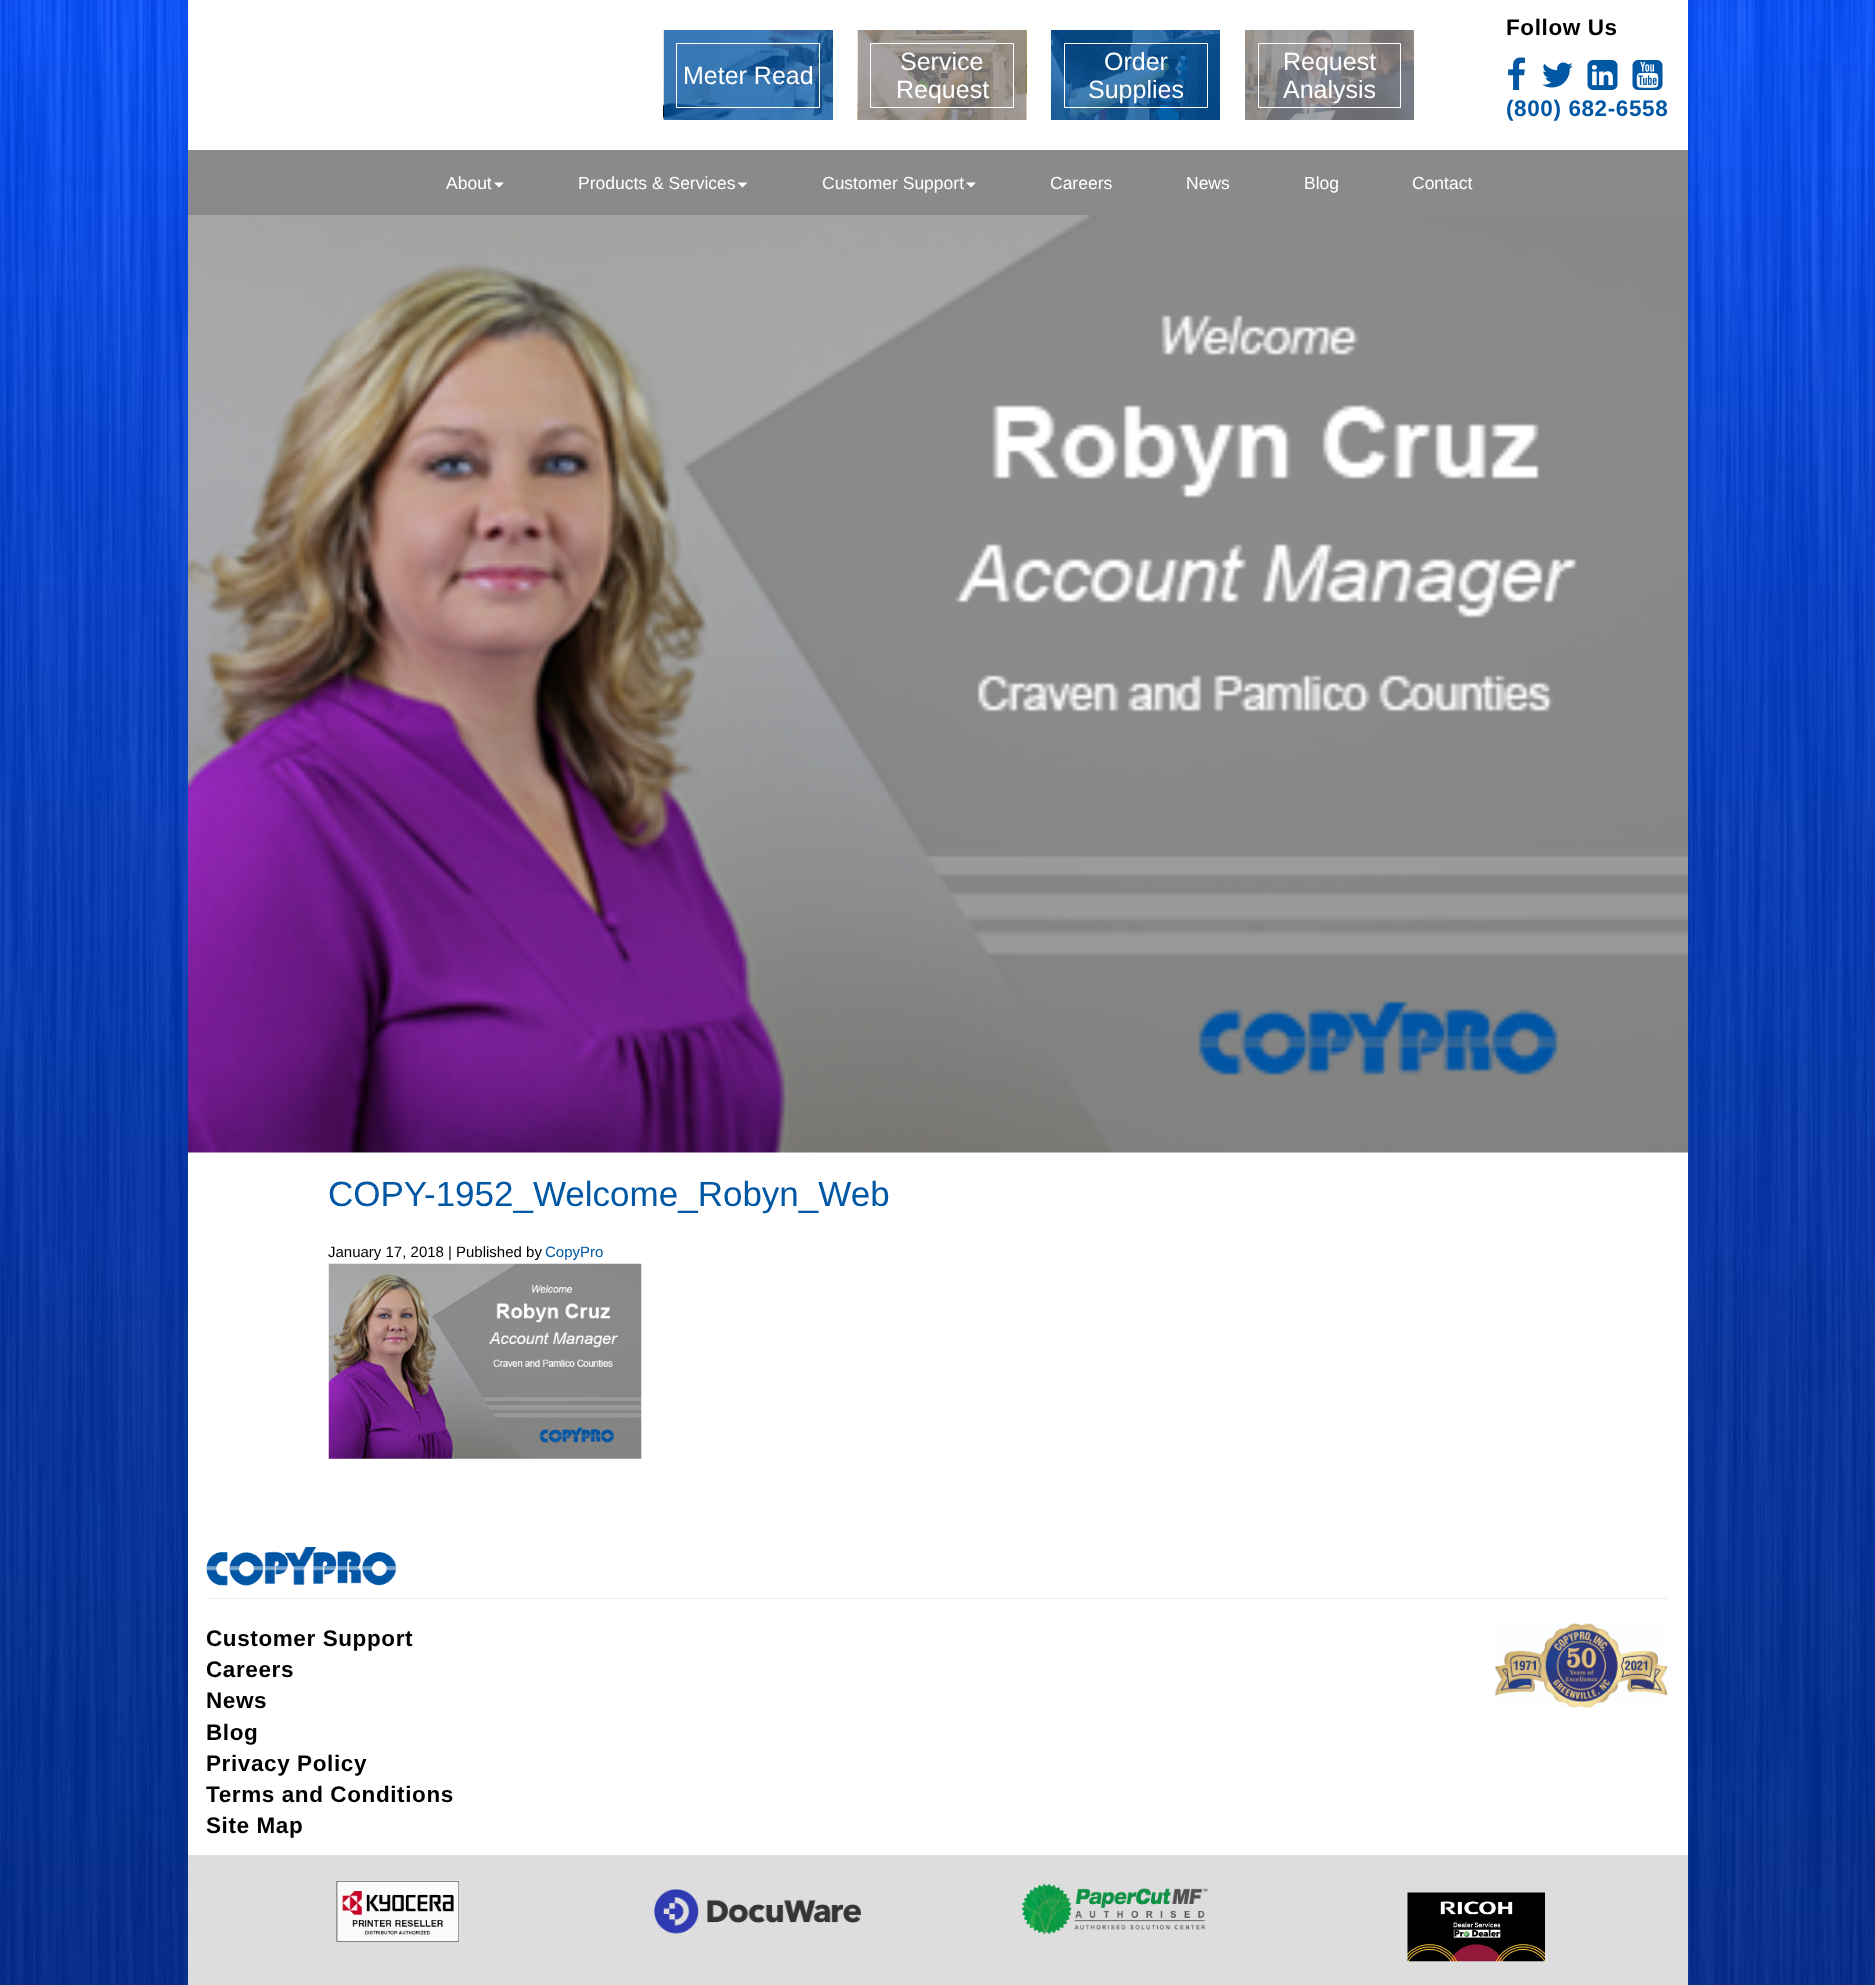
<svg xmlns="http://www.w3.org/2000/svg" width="1875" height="1985">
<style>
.a{font:25px Liberation Sans;fill:#fff}
.b{font:bold 22.5px Liberation Sans;letter-spacing:0.6px;fill:#000}
.c{font:bold 22.5px Liberation Sans;letter-spacing:0.6px;fill:#0057a3}
.d{font:17.5px Liberation Sans;fill:#fff}
.e{font:35px Liberation Sans;fill:#0057a3}
.f{font:15px Liberation Sans;fill:#000}
.g{font:15px Liberation Sans;fill:#0057a3}
</style>
<rect width="100%" height="100%" fill="#fff"/>
<image href="1.png" x="0" y="0" width="1875" height="1985"/>
<path fill="#fff" d="M188 0h1500v150H188z"/>
<image href="2.png" x="663" y="30" width="170" height="90"/>
<path fill="#0055a5bf" d="M664 30h169v90H664z"/>
<path fill="none" stroke="#fff" d="M676.5 43.5h143v64H676.5z"/>
<image href="3.png" x="857" y="30" width="170" height="90"/>
<path fill="#8a8a8dbf" d="M858 30h168v90H858z"/>
<path fill="none" stroke="#fff" d="M870.5 43.5h143v64H870.5z"/>
<image href="4.png" x="1051" y="30" width="169" height="90"/>
<path fill="#0055a5bf" d="M1051 30h169v90H1051z"/>
<path fill="none" stroke="#fff" d="M1064.5 43.5h143v64H1064.5z"/>
<image href="5.png" x="1245" y="30" width="169" height="90"/>
<path fill="#8a8a8dbf" d="M1245 30h169v90H1245z"/>
<path fill="none" stroke="#fff" d="M1258.5 43.5h142v64H1258.5z"/>
<image href="6.png" x="1508" y="57" width="17" height="33"/>
<image href="7.png" x="1542" y="62" width="31" height="26"/>
<image href="8.png" x="1587" y="60" width="31" height="30"/>
<image href="9.png" x="1632" y="60" width="31" height="30"/>
<path fill="#8a8a8d" d="M188 150h1500v65H188z"/>
<path fill="#fff" d="M494 182.5h10l-5 5z"/>
<path fill="#fff" d="M737.5 182.5h10l-5 5z"/>
<path fill="#fff" d="M966 182.5h10l-5 5z"/>
<path fill="#fff" d="M188 1152h1500v703H188z"/>
<image href="10.png" x="188" y="215" width="1500" height="938"/>
<image href="11.png" x="328" y="1263" width="314" height="196"/>
<path fill="#eee" d="M206 1598h1463v1H206z"/>
<image href="12.png" x="206" y="1547" width="191" height="39"/>
<image href="13.png" x="1494" y="1623" width="174" height="85"/>
<path fill="#ddd" d="M188 1855h1500v130H188z"/>
<image href="14.png" x="336" y="1880" width="124" height="63"/>
<image href="15.png" x="654" y="1889" width="207" height="45"/>
<image href="16.png" x="1021" y="1883" width="187" height="52"/>
<image href="17.png" x="1407" y="1892" width="138" height="70"/>
<text class="a" x="683" y="84">Meter Read</text>
<text class="a" x="900" y="70">Service</text>
<text class="a" x="896" y="98">Request</text>
<text class="a" x="1104" y="70">Order</text>
<text class="a" x="1088" y="98">Supplies</text>
<text class="a" x="1283" y="70">Request</text>
<text class="a" x="1283" y="98">Analysis</text>
<text class="b" x="1506" y="35">Follow Us</text>
<text class="c" x="1506" y="116">(800) 682-6558</text>
<text class="d" x="446" y="189">About</text>
<text class="d" x="578" y="189">Products &amp; Services</text>
<text class="d" x="822" y="189">Customer Support</text>
<text class="d" x="1050" y="189">Careers</text>
<text class="d" x="1186" y="189">News</text>
<text class="d" x="1304" y="189">Blog</text>
<text class="d" x="1412" y="189">Contact</text>
<text class="e" x="328" y="1206">COPY-1952_Welcome_Robyn_Web</text>
<text class="f" x="328" y="1257">January 17, 2018 |</text>
<text class="f" x="456" y="1257">Published by</text>
<text class="g" x="545" y="1257">CopyPro</text>
<text class="b" x="206" y="1646">Customer Support</text>
<text class="b" x="206" y="1677">Careers</text>
<text class="b" x="206" y="1708">News</text>
<text class="b" x="206" y="1740">Blog</text>
<text class="b" x="206" y="1771">Privacy Policy</text>
<text class="b" x="206" y="1802">Terms and Conditions</text>
<text class="b" x="206" y="1833">Site Map</text>
</svg>
